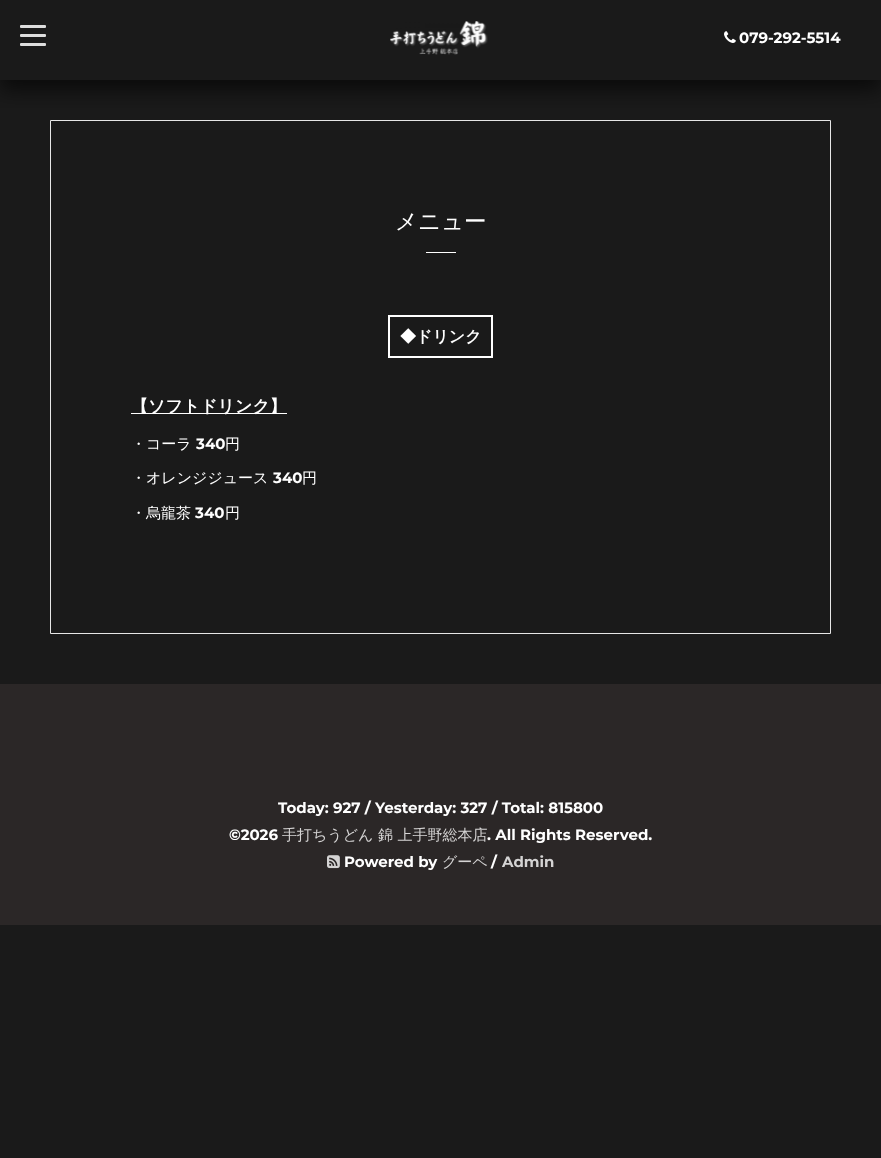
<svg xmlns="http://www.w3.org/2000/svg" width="881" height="1158">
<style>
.a{font:100 15px Montserrat;fill:#fff}
.b{font:500 22.5px WenQuanYi Zen Hei;fill:#fff}
.c{font:bold 16px WenQuanYi Zen Hei;fill:#fff}
.d{font:bold 17px WenQuanYi Zen Hei;fill:#fff}
.e{font:500 15px WenQuanYi Zen Hei;fill:#fff}
.f{font:500 15px WenQuanYi Zen Hei;fill:#d5d4d4}
.g{font:100 15px Montserrat;fill:#d5d4d4}
</style>
<defs>
<clipPath id="clip1"><path d="M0 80h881v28H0z"/></clipPath>
</defs>
<rect width="100%" height="100%" fill="#1a1a1a"/>
<path fill="none" stroke="#e6e6e6" d="M50.5 120.5h780v513H50.5z"/>
<g clip-path="url(#clip1)">
<path fill="#00000099" filter="blur(10px)" d="M0 10h881v80H0z"/>
</g>
<rect fill="#ddd" x="20" y="34" width="26" height="3" rx="1"/>
<rect fill="#ddd" x="20" y="25" width="26" height="3" rx="1"/>
<rect fill="#ddd" x="20" y="43" width="26" height="3" rx="1"/>
<image href="1.png" x="390" y="21" width="98" height="34"/>
<image href="2.png" x="724" y="31" width="12" height="12"/>
<path fill="#fff" d="M426 252h30v1H426z"/>
<path fill="none" stroke="#fff" stroke-width="2" d="M389 316h103v41H389z"/>
<path fill="#fff" d="M131 413h156v1H131z"/>
<path fill="#2b2727" d="M0 684h881v241H0z"/>
<image href="3.png" x="327" y="855" width="13" height="14"/>
<text class="a" x="739" y="43">079-292-5514</text>
<text class="b" x="395" y="229">メニュー</text>
<text class="c" x="400" y="342">◆ドリンク</text>
<text class="d" x="131" y="412">【ソフトドリンク】</text>
<text class="e" x="131" y="449">・コーラ</text>
<text class="a" x="196" y="449">340</text>
<text class="e" x="225" y="449">円</text>
<text class="e" x="131" y="483">・オレンジジュース</text>
<text class="a" x="273" y="483">340</text>
<text class="e" x="302" y="483">円</text>
<text class="e" x="131" y="518">・烏龍茶</text>
<text class="a" x="195" y="518">340</text>
<text class="e" x="225" y="518">円</text>
<text class="a" x="278" y="813">Today: 927 / Yesterday: 327 / Total: 815800</text>
<text class="a" x="229" y="840">©2026</text>
<text class="f" x="282" y="840">手打ちうどん 錦 上手野総本店</text>
<text class="a" x="487" y="840">. All Rights Reserved.</text>
<text class="a" x="344" y="867">Powered by</text>
<text class="f" x="442" y="867">グーペ</text>
<text class="a" x="491" y="867">/</text>
<text class="g" x="502" y="867">Admin</text>
</svg>
